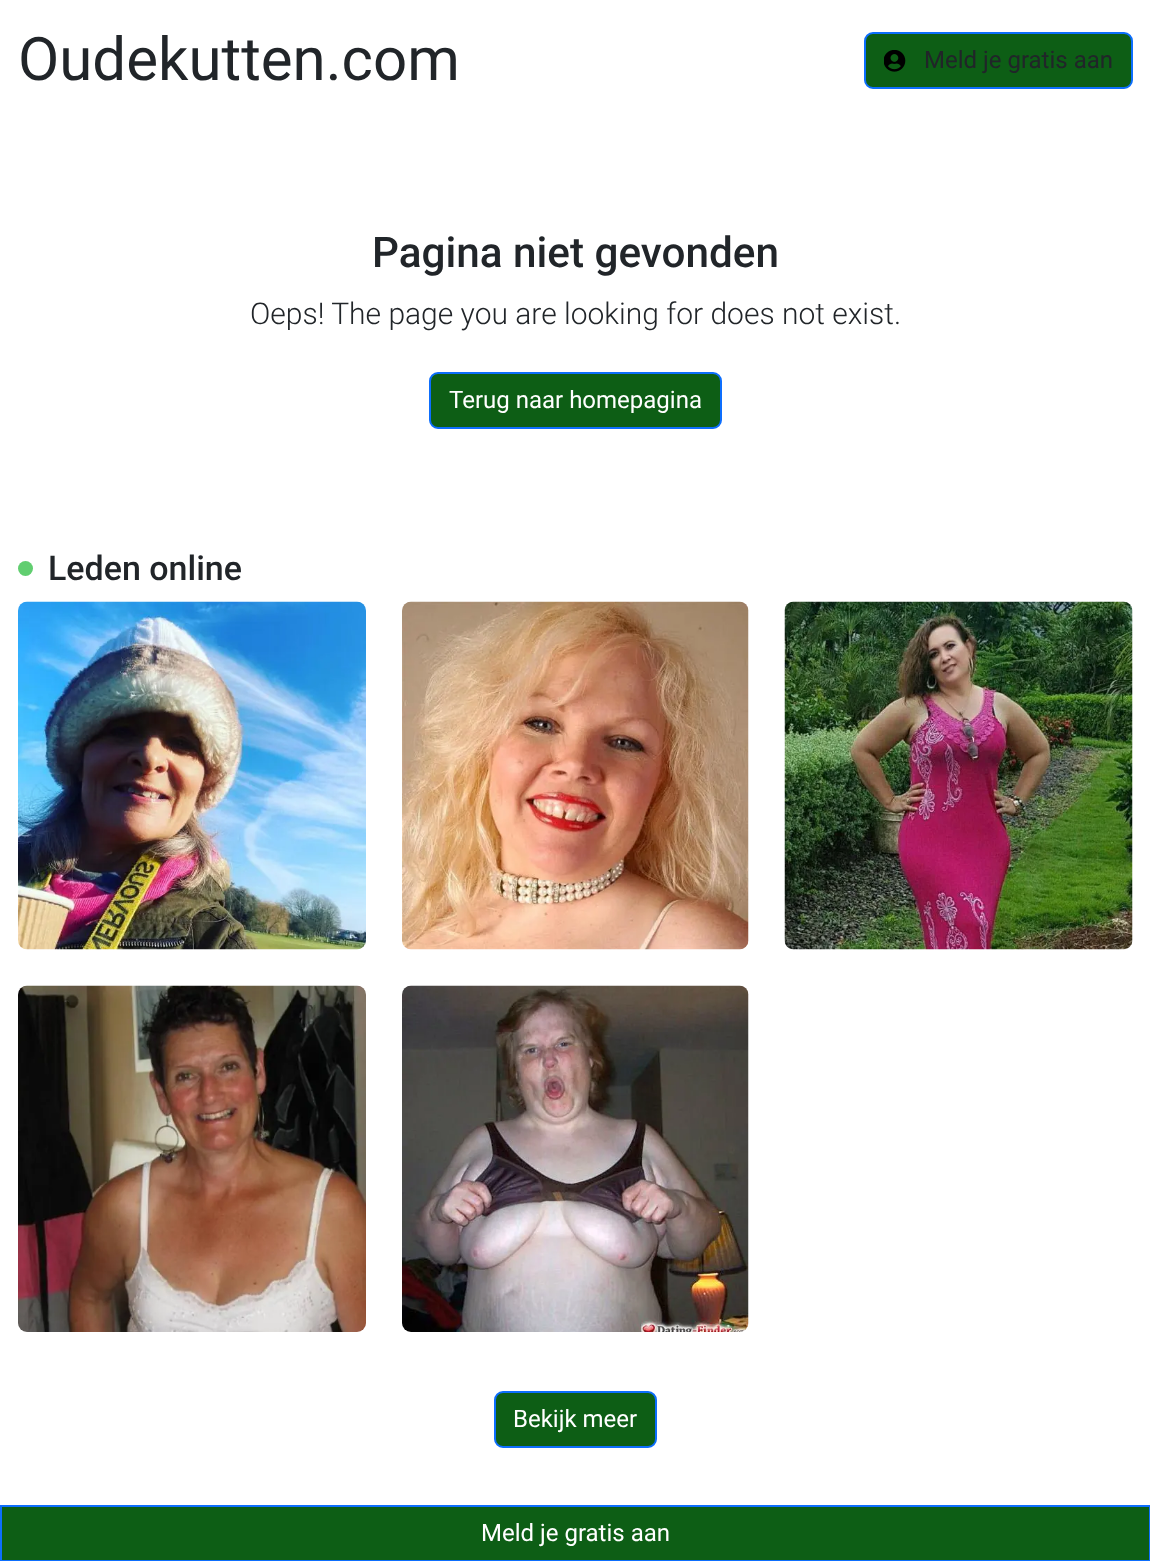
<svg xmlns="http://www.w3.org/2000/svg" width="1150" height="1561">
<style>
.a{font:60px Roboto;fill:#212529}
.b{font:24px Roboto;fill:#212529}
.c{font:500 42.25px Roboto;fill:#212529}
.d{font:300 30px Roboto;fill:#212529}
.e{font:24px Roboto;fill:#fff}
.f{font:500 34px Roboto;fill:#212529}
</style>
<rect width="100%" height="100%" fill="#fff"/>
<rect fill="#0d5e15" stroke="#0d6efd" stroke-width="2" x="865" y="33" width="267" height="55" rx="8"/>
<image href="1.png" x="884" y="50" width="22" height="22"/>
<rect fill="#0d5e15" stroke="#0d6efd" stroke-width="2" x="430" y="373" width="291" height="55" rx="8"/>
<circle fill="#61ce70" cx="25.5" cy="568.5" r="7.5"/>
<image href="2.png" x="18" y="601" width="348" height="349"/>
<image href="3.png" x="402" y="601" width="347" height="349"/>
<image href="4.png" x="784" y="601" width="349" height="349"/>
<image href="5.png" x="18" y="985" width="348" height="347"/>
<image href="6.png" x="402" y="985" width="347" height="347"/>
<rect fill="#0d5e15" stroke="#0d6efd" stroke-width="2" x="495" y="1392" width="161" height="55" rx="8"/>
<path fill="#0d5e15" stroke="#0d6efd" stroke-width="2" d="M1 1506h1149v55H1z"/>
<text class="a" x="18" y="80">Oudekutten.com</text>
<text class="b" x="924" y="68">Meld je gratis aan</text>
<text class="c" x="372" y="267">Pagina niet gevonden</text>
<text class="d" x="250" y="324">Oeps! The page you are looking for does not exist.</text>
<text class="e" x="449" y="408">Terug naar homepagina</text>
<text class="f" x="48" y="580">Leden online</text>
<text class="e" x="513" y="1427">Bekijk meer</text>
<text class="e" x="481" y="1541">Meld je gratis aan</text>
</svg>
